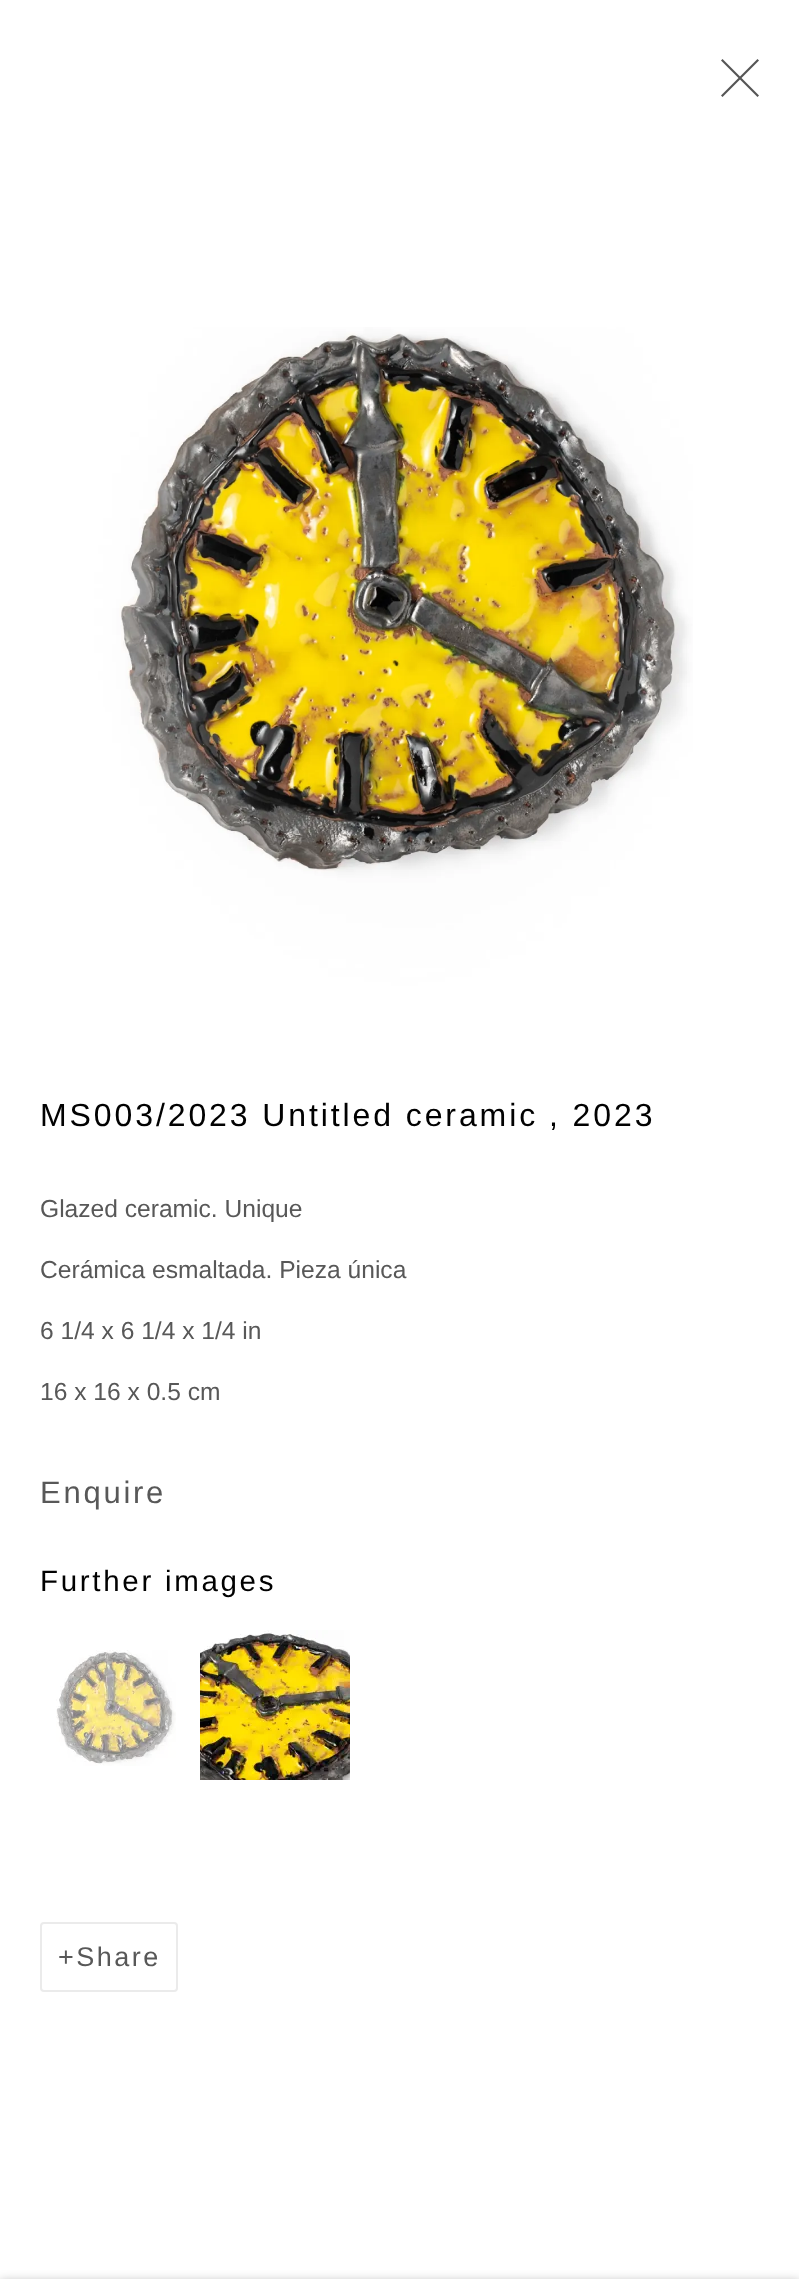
<svg xmlns="http://www.w3.org/2000/svg" width="799" height="2279">
<style>
.a{font:32px Liberation Sans;letter-spacing:2.9px;fill:#010101}
.b{font:24.6px Liberation Sans;fill:#585858}
.c{font:31px Liberation Sans;letter-spacing:2.75px;fill:#585858}
.d{font:29.5px Liberation Sans;letter-spacing:2.7px;fill:#010101}
.e{font:27px Liberation Sans;letter-spacing:2.5px;fill:#585858}
</style>
<rect width="100%" height="100%" fill="#fff"/>
<path fill="#555" d="M759 60.5l-1.5-1.5l-17.5 17.5l-17.5-17.5l-1.5 1.5l17.5 17.5l-17.5 17.5l1.5 1.5l17.5-17.5l17.5 17.5l1.5-1.5l-17.5-17.5z"/>
<image href="1.png" x="43" y="327" width="650" height="705"/>
<image href="2.png" x="56" y="1650" width="120" height="116"/>
<image href="3.png" x="200" y="1630" width="150" height="150"/>
<rect fill="none" stroke="#ebebeb" stroke-width="2" x="41" y="1923" width="136" height="68" rx="3"/>
<path fill="#0000003b" filter="blur(5px)" d="M0 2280h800v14H0z"/>
<text class="a" x="40" y="1126">MS003/2023 Untitled ceramic</text>
<text class="a" x="549" y="1126">, 2023</text>
<text class="b" x="40" y="1217">Glazed ceramic. Unique</text>
<text class="b" x="40" y="1278">Cerámica esmaltada. Pieza única</text>
<text class="b" x="40" y="1339">6 1/4 x 6 1/4 x 1/4 in</text>
<text class="b" x="40" y="1400">16 x 16 x 0.5 cm</text>
<text class="c" x="40" y="1503">Enquire</text>
<text class="d" x="40" y="1591">Further images</text>
<text class="e" x="58" y="1966">+Share</text>
</svg>
